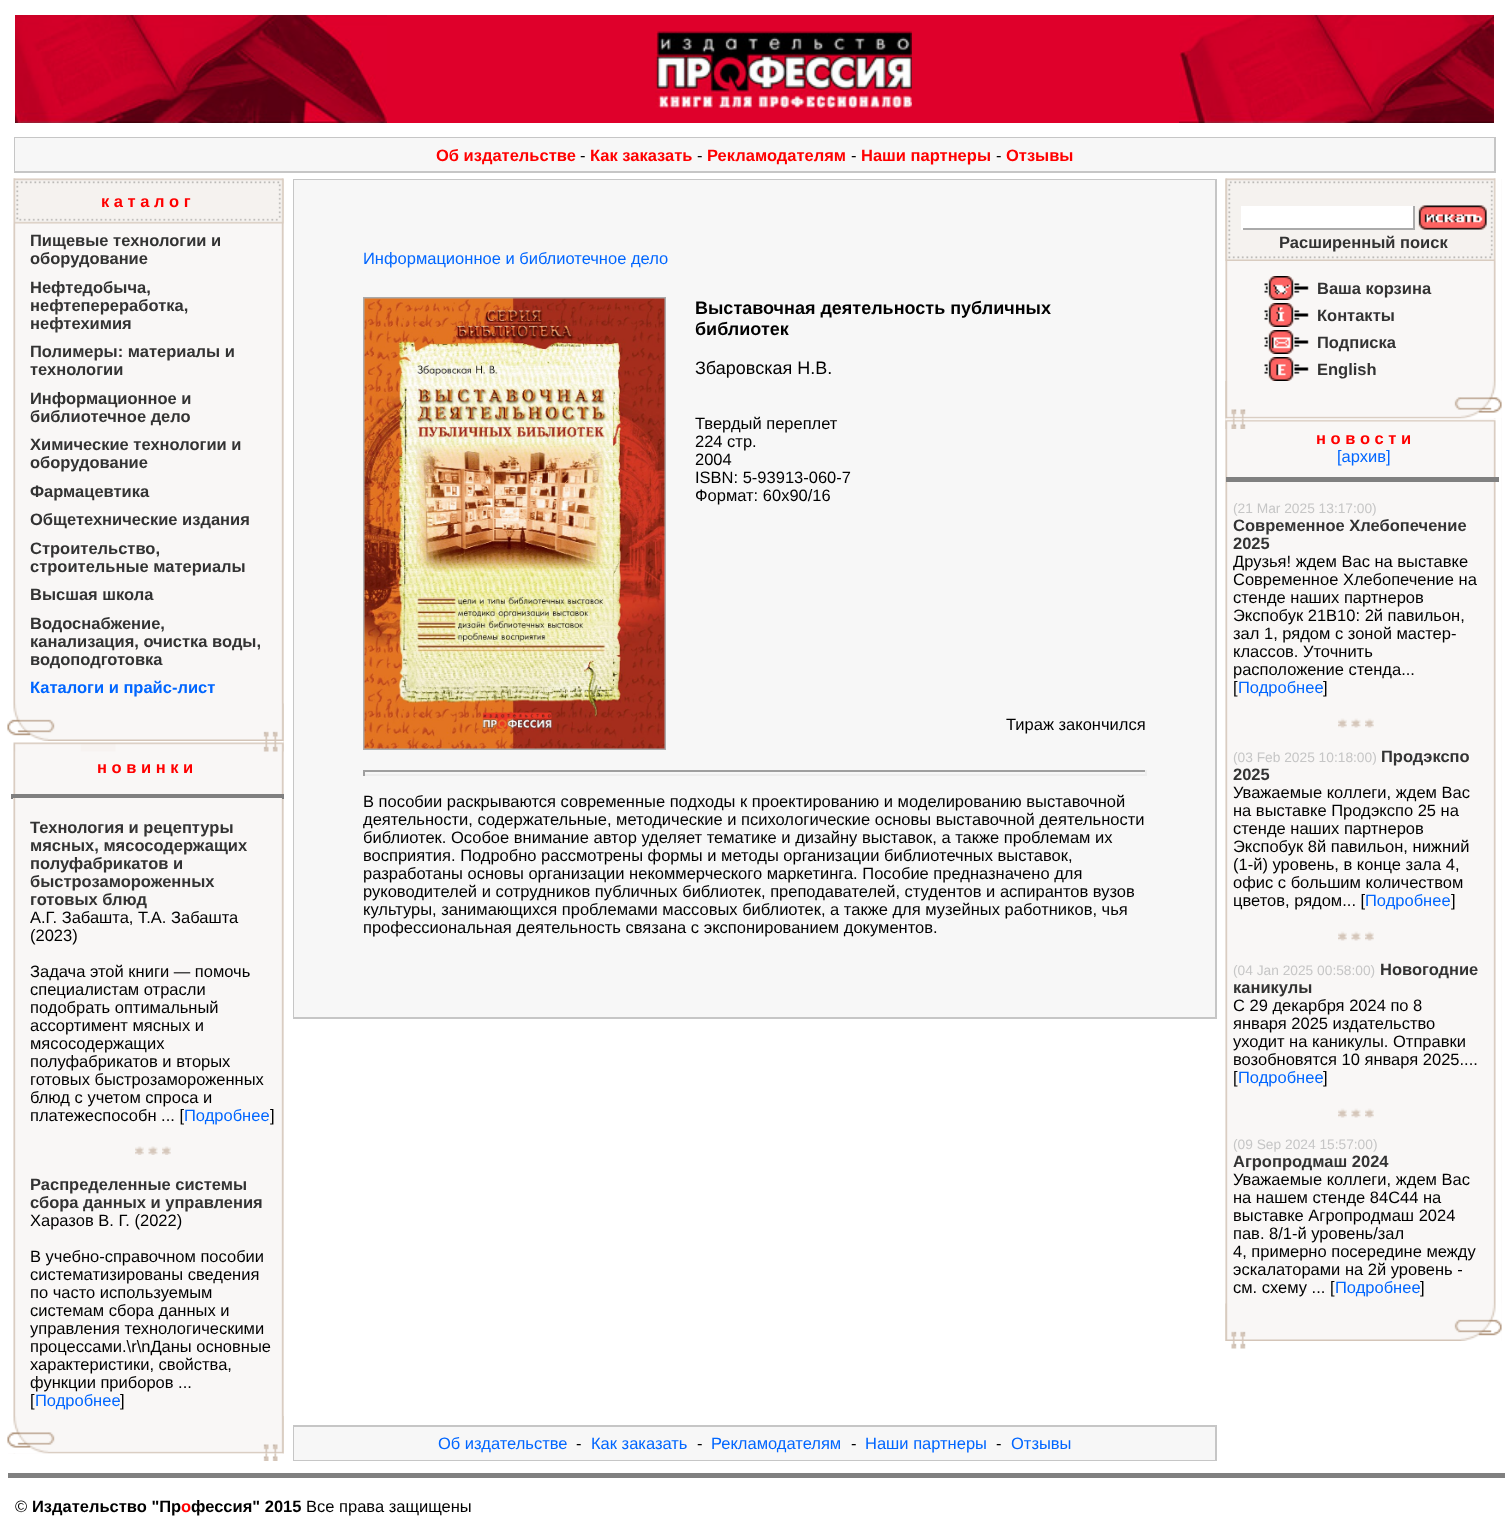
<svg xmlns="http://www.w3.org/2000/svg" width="1508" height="1524">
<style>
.a{font:bold 16.5px Liberation Sans;fill:#f00}
.b{font:16.5px Liberation Sans;fill:#000}
.c{font:bold 16.5px Liberation Sans;fill:#333}
.d{font:bold 16.5px Liberation Sans;fill:#06f}
.e{font:16.5px Liberation Sans;fill:#06f}
.f{font:bold 18px Liberation Sans;fill:#000}
.g{font:18px Liberation Sans;fill:#000}
.h{font:13.75px Liberation Sans;fill:#c6c6c6}
.i{font:bold 16.5px Liberation Sans;fill:#000}
</style>
<rect width="100%" height="100%" fill="#fff"/>
<path fill="#df002b" d="M387 15h792v108H387z"/>
<image href="1.png" x="15" y="15" width="372" height="108"/>
<image href="2.png" x="655" y="31" width="257" height="77"/>
<image href="3.png" x="1179" y="15" width="315" height="108"/>
<path fill="#c6c6c6" d="M14 137h1482v36H14z"/>
<path fill="#f7f7f7" d="M15 138h1479v33H15z"/>
<path fill="#f9f7f6" d="M283 179h1v562H283z"/>
<image href="4.png" x="8" y="178" width="276" height="563"/>
<image href="5.png" x="13" y="178" width="271" height="46"/>
<image href="6.png" x="7" y="703" width="277" height="38"/>
<path fill="#f9f7f6" d="M8 741h276v713H8z"/>
<image href="7.png" x="8" y="741" width="276" height="713"/>
<image href="8.png" x="13" y="741" width="271" height="11"/>
<path fill="#808080" d="M12 796h270v2H12z"/>
<path fill="#808080" d="M11 794h273v2H11z"/>
<path fill="#808080" d="M282 794h2v5H282z"/>
<path fill="#808080" d="M11 794h2v5H11z"/>
<image href="9.png" x="135" y="1146" width="9" height="9"/>
<image href="10.png" x="148" y="1146" width="10" height="9"/>
<image href="9.png" x="162" y="1146" width="9" height="9"/>
<image href="11.png" x="7" y="1416" width="277" height="38"/>
<image href="12.png" x="13" y="1453" width="271" height="8"/>
<path fill="#c6c6c6" d="M293 179h924v840H293z"/>
<path fill="#f7f7f7" d="M294 180h921v837H294z"/>
<path fill="none" stroke="#aaa" stroke-width="2" d="M364 298h301v451H364z"/>
<image href="13.png" x="364" y="298" width="301" height="451"/>
<path fill="#9f9f9f" d="M363 770h783v2H363z"/>
<path fill="#eee" d="M1145 770h2v6H1145z"/>
<path fill="#eee" d="M363 774h783v2H363z"/>
<path fill="#9f9f9f" d="M363 770h2v6H363z"/>
<path fill="#f9f7f6" d="M1226 179h276v240H1226z"/>
<image href="14.png" x="1225" y="178" width="277" height="241"/>
<image href="15.png" x="1225" y="178" width="271" height="83"/>
<path fill="#fff" d="M1243 206h170v22H1243z"/>
<path fill="#aaa" d="M1413 206h2v24H1413z"/>
<path fill="#aaa" d="M1241 228h174v2H1241z"/>
<path fill="#fff" d="M1241 206h2v24H1241z"/>
<image href="16.png" x="1418" y="204" width="70" height="27"/>
<image href="17.png" x="1264" y="276" width="45" height="24"/>
<image href="18.png" x="1264" y="303" width="45" height="24"/>
<image href="19.png" x="1264" y="330" width="45" height="24"/>
<image href="20.png" x="1264" y="357" width="45" height="24"/>
<path fill="#f9f7f6" d="M1501 419h1v922H1501z"/>
<image href="22.png" x="1225" y="418" width="277" height="923"/>
<image href="21.png" x="1225" y="381" width="277" height="38"/>
<image href="23.png" x="1225" y="418" width="271" height="11"/>
<path fill="#808080" d="M1227 479h270v3H1227z"/>
<path fill="#808080" d="M1226 477h273v2H1226z"/>
<path fill="#808080" d="M1497 477h2v5H1497z"/>
<path fill="#808080" d="M1226 477h1v5H1226z"/>
<image href="24.png" x="1338" y="718" width="9" height="10"/>
<image href="25.png" x="1351" y="718" width="10" height="10"/>
<image href="24.png" x="1365" y="718" width="9" height="10"/>
<image href="24.png" x="1338" y="931" width="9" height="10"/>
<image href="25.png" x="1351" y="931" width="10" height="10"/>
<image href="24.png" x="1365" y="931" width="9" height="10"/>
<image href="24.png" x="1338" y="1108" width="9" height="10"/>
<image href="25.png" x="1351" y="1108" width="10" height="10"/>
<image href="24.png" x="1365" y="1108" width="9" height="10"/>
<image href="26.png" x="1225" y="1303" width="277" height="38"/>
<image href="27.png" x="1231" y="1341" width="15" height="8"/>
<path fill="#c6c6c6" d="M293 1425h924v36H293z"/>
<path fill="#f7f7f7" d="M294 1427h921v33H294z"/>
<path fill="#808080" d="M9 1475h1494v3H9z"/>
<path fill="#808080" d="M8 1473h1497v2H8z"/>
<path fill="#808080" d="M1503 1473h2v5H1503z"/>
<path fill="#808080" d="M8 1473h1v5H8z"/>
<text class="a" x="436" y="161">Об издательстве</text>
<text class="b" x="580" y="161">-</text>
<text class="a" x="590" y="161">Как заказать</text>
<text class="b" x="697" y="161">-</text>
<text class="a" x="707" y="161">Рекламодателям</text>
<text class="b" x="851" y="161">-</text>
<text class="a" x="861" y="161">Наши партнеры</text>
<text class="b" x="996" y="161">-</text>
<text class="a" x="1006" y="161">Отзывы</text>
<text class="a" x="101" y="207">к а т а л о г</text>
<text class="c" x="30" y="246">Пищевые технологии и</text>
<text class="c" x="30" y="264">оборудование</text>
<text class="c" x="30" y="293">Нефтедобыча,</text>
<text class="c" x="30" y="311">нефтепереработка,</text>
<text class="c" x="30" y="329">нефтехимия</text>
<text class="c" x="30" y="357">Полимеры: материалы и</text>
<text class="c" x="30" y="375">технологии</text>
<text class="c" x="30" y="404">Информационное и</text>
<text class="c" x="30" y="422">библиотечное дело</text>
<text class="c" x="30" y="450">Химические технологии и</text>
<text class="c" x="30" y="468">оборудование</text>
<text class="c" x="30" y="497">Фармацевтика</text>
<text class="c" x="30" y="525">Общетехнические издания</text>
<text class="c" x="30" y="554">Строительство,</text>
<text class="c" x="30" y="572">строительные материалы</text>
<text class="c" x="30" y="600">Высшая школа</text>
<text class="c" x="30" y="629">Водоснабжение,</text>
<text class="c" x="30" y="647">канализация, очистка воды,</text>
<text class="c" x="30" y="665">водоподготовка</text>
<text class="d" x="30" y="693">Каталоги и прайс-лист</text>
<text class="a" x="97" y="773">н о в и н к и</text>
<text class="c" x="30" y="833">Технология и рецептуры</text>
<text class="c" x="30" y="851">мясных, мясосодержащих</text>
<text class="c" x="30" y="869">полуфабрикатов и</text>
<text class="c" x="30" y="887">быстрозамороженных</text>
<text class="c" x="30" y="905">готовых блюд</text>
<text class="b" x="30" y="923">А.Г. Забашта, Т.А. Забашта</text>
<text class="b" x="30" y="941">(2023)</text>
<text class="b" x="30" y="977">Задача этой книги — помочь</text>
<text class="b" x="30" y="995">специалистам отрасли</text>
<text class="b" x="30" y="1013">подобрать оптимальный</text>
<text class="b" x="30" y="1031">ассортимент мясных и</text>
<text class="b" x="30" y="1049">мясосодержащих</text>
<text class="b" x="30" y="1067">полуфабрикатов и вторых</text>
<text class="b" x="30" y="1085">готовых быстрозамороженных</text>
<text class="b" x="30" y="1103">блюд с учетом спроса и</text>
<text class="b" x="30" y="1121">платежеспособн ... [</text>
<text class="e" x="184" y="1121">Подробнее</text>
<text class="b" x="270" y="1121">]</text>
<text class="c" x="30" y="1190">Распределенные системы</text>
<text class="c" x="30" y="1208">сбора данных и управления</text>
<text class="b" x="30" y="1226">Харазов В. Г. (2022)</text>
<text class="b" x="30" y="1262">В учебно-справочном пособии</text>
<text class="b" x="30" y="1280">систематизированы сведения</text>
<text class="b" x="30" y="1298">по часто используемым</text>
<text class="b" x="30" y="1316">системам сбора данных и</text>
<text class="b" x="30" y="1334">управления технологическими</text>
<text class="b" x="30" y="1352">процессами.\r\nДаны основные</text>
<text class="b" x="30" y="1370">характеристики, свойства,</text>
<text class="b" x="30" y="1388">функции приборов ...</text>
<text class="b" x="30" y="1406">[</text>
<text class="e" x="35" y="1406">Подробнее</text>
<text class="b" x="120" y="1406">]</text>
<text class="e" x="363" y="264">Информационное и библиотечное дело</text>
<text class="f" x="695" y="314">Выставочная деятельность публичных</text>
<text class="f" x="695" y="335">библиотек</text>
<text class="g" x="695" y="374">Збаровская Н.В.</text>
<text class="b" x="695" y="429">Твердый переплет</text>
<text class="b" x="695" y="447">224 стр.</text>
<text class="b" x="695" y="465">2004</text>
<text class="b" x="695" y="483">ISBN: 5-93913-060-7</text>
<text class="b" x="695" y="501">Формат: 60x90/16</text>
<text class="b" x="1006" y="730">Тираж закончился</text>
<text class="b" x="363" y="807">В пособии раскрываются современные подходы к проектированию и моделированию выставочной</text>
<text class="b" x="363" y="825">деятельности, содержательные, методические и психологические основы выставочной деятельности</text>
<text class="b" x="363" y="843">библиотек. Особое внимание автор уделяет тематике и дизайну выставок, а также проблемам их</text>
<text class="b" x="363" y="861">восприятия. Подробно рассмотрены формы и методы организации библиотечных выставок,</text>
<text class="b" x="363" y="879">разработаны основы организации некоммерческого маркетинга. Пособие предназначено для</text>
<text class="b" x="363" y="897">руководителей и сотрудников публичных библиотек, преподавателей, студентов и аспирантов вузов</text>
<text class="b" x="363" y="915">культуры, занимающихся проблемами массовых библиотек, а также для музейных работников, чья</text>
<text class="b" x="363" y="933">профессиональная деятельность связана с экспонированием документов.</text>
<text class="c" x="1279" y="248">Расширенный поиск</text>
<text class="c" x="1317" y="294">Ваша корзина</text>
<text class="c" x="1317" y="321">Контакты</text>
<text class="c" x="1317" y="348">Подписка</text>
<text class="c" x="1317" y="375">English</text>
<text class="a" x="1316" y="444">н о в о с т и</text>
<text class="e" x="1337" y="462">[архив]</text>
<text class="h" x="1233" y="513">(21 Mar 2025 13:17:00)</text>
<text class="c" x="1233" y="531">Современное Хлебопечение</text>
<text class="c" x="1233" y="549">2025</text>
<text class="b" x="1233" y="567">Друзья! ждем Вас на выставке</text>
<text class="b" x="1233" y="585">Современное Хлебопечение на</text>
<text class="b" x="1233" y="603">стенде наших партнеров</text>
<text class="b" x="1233" y="621">Экспобук 21В10: 2й павильон,</text>
<text class="b" x="1233" y="639">зал 1, рядом с зоной мастер-</text>
<text class="b" x="1233" y="657">классов. Уточнить</text>
<text class="b" x="1233" y="675">расположение стенда...</text>
<text class="b" x="1233" y="693">[</text>
<text class="e" x="1238" y="693">Подробнее</text>
<text class="b" x="1323" y="693">]</text>
<text class="h" x="1233" y="762">(03 Feb 2025 10:18:00)</text>
<text class="c" x="1381" y="762">Продэкспо</text>
<text class="c" x="1233" y="780">2025</text>
<text class="b" x="1233" y="798">Уважаемые коллеги, ждем Вас</text>
<text class="b" x="1233" y="816">на выставке Продэкспо 25 на</text>
<text class="b" x="1233" y="834">стенде наших партнеров</text>
<text class="b" x="1233" y="852">Экспобук 8й павильон, нижний</text>
<text class="b" x="1233" y="870">(1-й) уровень, в конце зала 4,</text>
<text class="b" x="1233" y="888">офис с большим количеством</text>
<text class="b" x="1233" y="906">цветов, рядом... [</text>
<text class="e" x="1365" y="906">Подробнее</text>
<text class="b" x="1451" y="906">]</text>
<text class="h" x="1233" y="975">(04 Jan 2025 00:58:00)</text>
<text class="c" x="1380" y="975">Новогодние</text>
<text class="c" x="1233" y="993">каникулы</text>
<text class="b" x="1233" y="1011">С 29 декарбря 2024 по 8</text>
<text class="b" x="1233" y="1029">января 2025 издательство</text>
<text class="b" x="1233" y="1047">уходит на каникулы. Отправки</text>
<text class="b" x="1233" y="1065">возобновятся 10 января 2025....</text>
<text class="b" x="1233" y="1083">[</text>
<text class="e" x="1238" y="1083">Подробнее</text>
<text class="b" x="1323" y="1083">]</text>
<text class="h" x="1233" y="1149">(09 Sep 2024 15:57:00)</text>
<text class="c" x="1233" y="1167">Агропродмаш 2024</text>
<text class="b" x="1233" y="1185">Уважаемые коллеги, ждем Вас</text>
<text class="b" x="1233" y="1203">на нашем стенде 84С44 на</text>
<text class="b" x="1233" y="1221">выставке Агропродмаш 2024</text>
<text class="b" x="1233" y="1239">пав. 8/1-й уровень/зал</text>
<text class="b" x="1233" y="1257">4, примерно посередине между</text>
<text class="b" x="1233" y="1275">эскалаторами на 2й уровень -</text>
<text class="b" x="1233" y="1293">см. схему ... [</text>
<text class="e" x="1335" y="1293">Подробнее</text>
<text class="b" x="1420" y="1293">]</text>
<text class="e" x="438" y="1449">Об издательстве</text>
<text class="b" x="576" y="1449">-</text>
<text class="e" x="591" y="1449">Как заказать</text>
<text class="b" x="697" y="1449">-</text>
<text class="e" x="711" y="1449">Рекламодателям</text>
<text class="b" x="851" y="1449">-</text>
<text class="e" x="865" y="1449">Наши партнеры</text>
<text class="b" x="996" y="1449">-</text>
<text class="e" x="1011" y="1449">Отзывы</text>
<text class="b" x="15" y="1512">©</text>
<text class="i" x="32" y="1512">Издательство "Пр</text>
<text class="a" x="181" y="1512">о</text>
<text class="i" x="191" y="1512">фессия" 2015</text>
<text class="b" x="306" y="1512">Все права защищены</text>
</svg>
